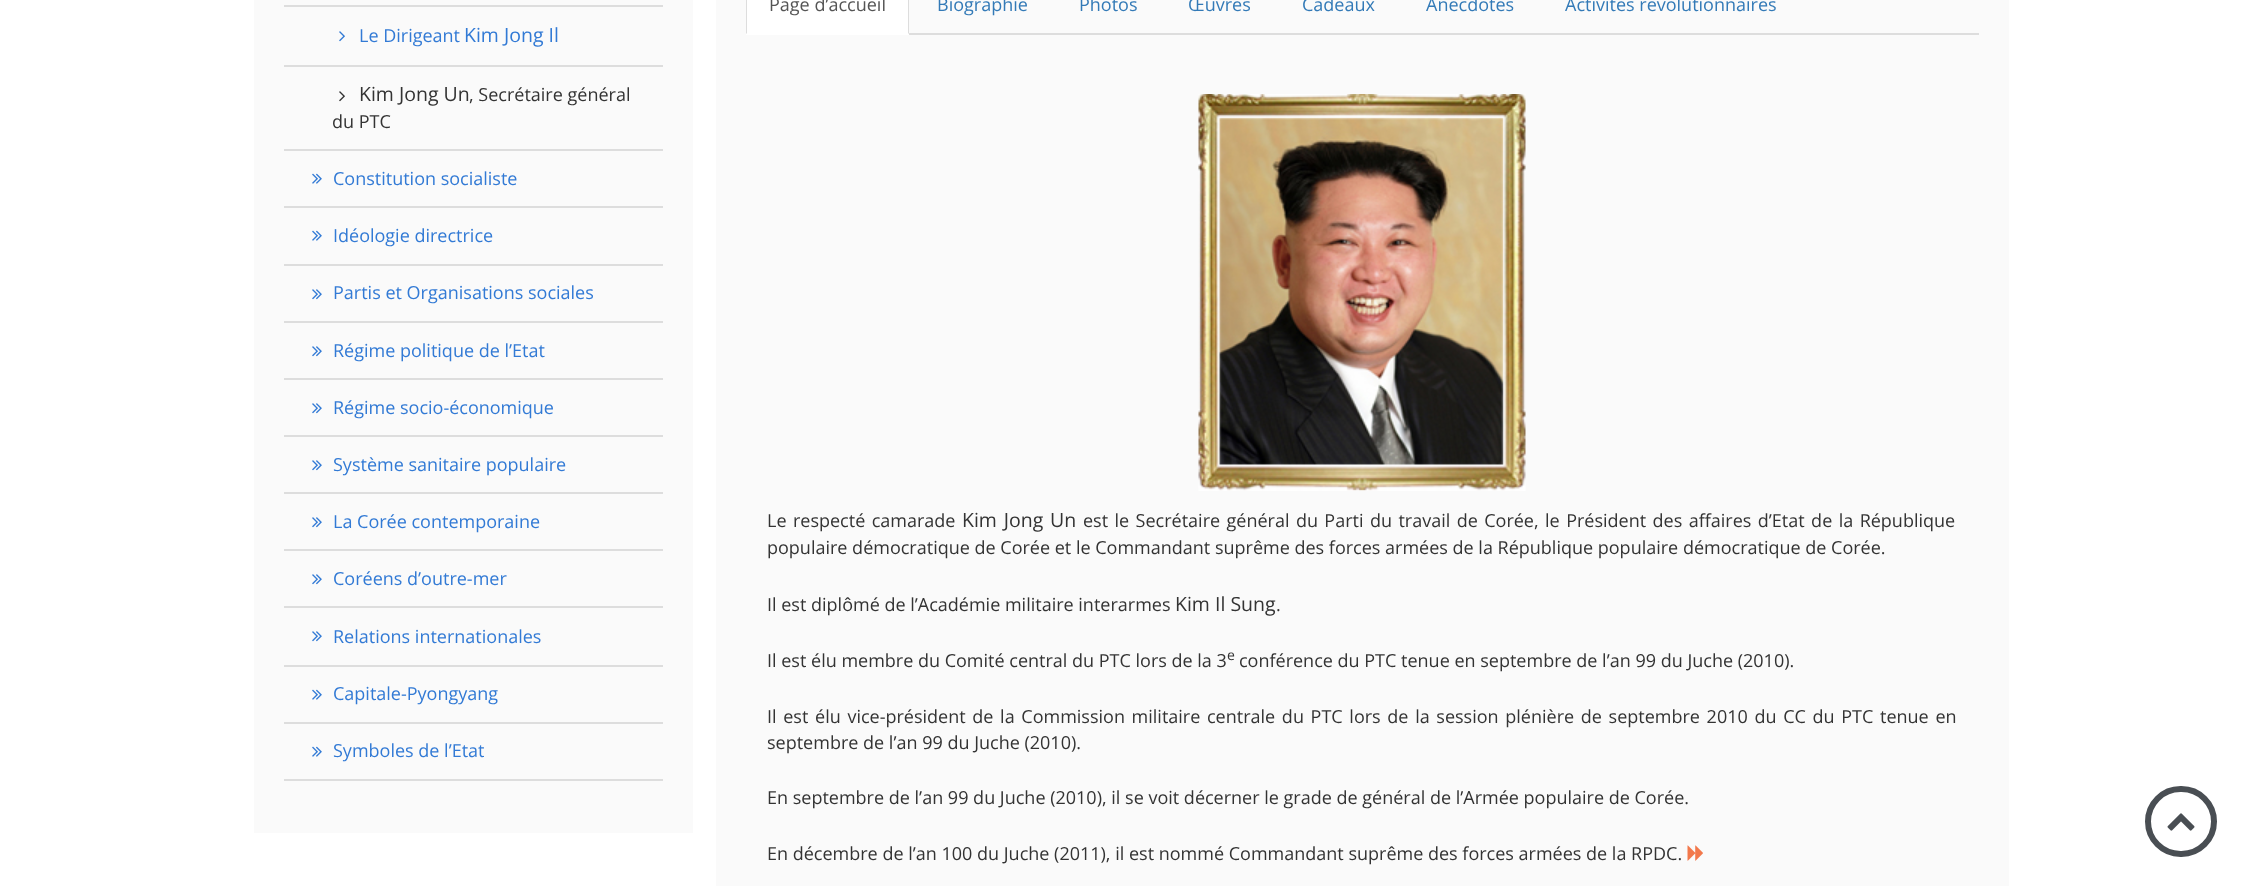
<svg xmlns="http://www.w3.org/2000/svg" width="2261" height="886">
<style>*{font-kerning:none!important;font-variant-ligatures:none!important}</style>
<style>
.a{font:18px Open Sans;fill:#327ad5}
.b{font:19.5px Open Sans;fill:#327ad5}
.c{font:19.5px Open Sans;fill:#333}
.d{font:18px Open Sans;fill:#333}
.e{font:18px Open Sans;fill:#555}
.f{font:18px Open Sans;fill:#337ab7}
.g{font:14px Open Sans;fill:#333}
</style>
<rect width="100%" height="100%" fill="#fff"/>
<path fill="#fafafa" d="M254 0h439v833H254z"/>
<path fill="#ddd" d="M284 5h379v2H284z"/>
<image href="1.png" x="339" y="31" width="6" height="11"/>
<path fill="#ddd" d="M284 65h379v2H284z"/>
<image href="2.png" x="339" y="91" width="6" height="11"/>
<path fill="#ddd" d="M284 149h379v2H284z"/>
<image href="3.png" x="312" y="173" width="10" height="11"/>
<path fill="#ddd" d="M284 206h379v2H284z"/>
<image href="3.png" x="312" y="230" width="10" height="11"/>
<path fill="#ddd" d="M284 264h379v2H284z"/>
<image href="4.png" x="312" y="289" width="10" height="11"/>
<path fill="#ddd" d="M284 321h379v2H284z"/>
<image href="4.png" x="312" y="346" width="10" height="11"/>
<path fill="#ddd" d="M284 378h379v2H284z"/>
<image href="4.png" x="312" y="403" width="10" height="11"/>
<path fill="#ddd" d="M284 435h379v2H284z"/>
<image href="4.png" x="312" y="460" width="10" height="11"/>
<path fill="#ddd" d="M284 492h379v2H284z"/>
<image href="4.png" x="312" y="517" width="10" height="11"/>
<path fill="#ddd" d="M284 549h379v2H284z"/>
<image href="4.png" x="312" y="574" width="10" height="11"/>
<path fill="#ddd" d="M284 606h379v2H284z"/>
<image href="4.png" x="312" y="631" width="10" height="11"/>
<path fill="#ddd" d="M284 665h379v2H284z"/>
<image href="3.png" x="312" y="689" width="10" height="11"/>
<path fill="#ddd" d="M284 722h379v2H284z"/>
<path fill="#ddd" d="M284 779h379v2H284z"/>
<image href="3.png" x="312" y="746" width="10" height="11"/>
<path fill="#fafafa" d="M716 0h1293v886H716z"/>
<path fill="#ddd" d="M909 33h1070v2H909z"/>
<path fill="#fff" d="M746 0h163v35H746z"/>
<path fill="#ddd" d="M909-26v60l-1-1v-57z"/>
<path fill="#ddd" d="M746 34v-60l1 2v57z"/>
<image href="5.png" x="1198" y="94" width="328" height="397"/>
<image href="6.png" x="1687" y="845" width="16" height="16"/>
<rect fill="none" stroke="#494e53" stroke-width="6" x="2148" y="789" width="66" height="65" rx="32.5"/>
<image href="7.png" x="2167" y="813" width="28" height="18"/>
<text class="a" x="359" y="42">Le Dirigeant</text>
<text class="b" x="464" y="42">Kim Jong Il</text>
<text class="c" x="359" y="101">Kim Jong Un</text>
<text class="d" x="469" y="101">, Secrétaire général</text>
<text class="d" x="332" y="128">du PTC</text>
<text class="a" x="333" y="185">Constitution socialiste</text>
<text class="a" x="333" y="242">Idéologie directrice</text>
<text class="a" x="333" y="299">Partis et Organisations sociales</text>
<text class="a" x="333" y="357">Régime politique de l’Etat</text>
<text class="a" x="333" y="414">Régime socio-économique</text>
<text class="a" x="333" y="471">Système sanitaire populaire</text>
<text class="a" x="333" y="528">La Corée contemporaine</text>
<text class="a" x="333" y="585">Coréens d’outre-mer</text>
<text class="a" x="333" y="643">Relations internationales</text>
<text class="a" x="333" y="700">Capitale-Pyongyang</text>
<text class="a" x="333" y="757">Symboles de l’Etat</text>
<text class="e" x="769" y="11">Page d’accueil</text>
<text class="f" x="937" y="11">Biographie</text>
<text class="f" x="1079" y="11">Photos</text>
<text class="f" x="1188" y="11">Œuvres</text>
<text class="f" x="1302" y="11">Cadeaux</text>
<text class="f" x="1426" y="11">Anecdotes</text>
<text class="f" x="1565" y="11">Activités révolutionnaires</text>
<text class="d" x="767" y="527" word-spacing="1.75">Le respecté camarade</text>
<text class="c" x="962" y="527" word-spacing="1.75">Kim Jong Un</text>
<text class="d" x="1083" y="527" word-spacing="1.75">est le Secrétaire général du Parti du travail de Corée, le Président des affaires d’Etat de la République</text>
<text class="d" x="767" y="554">populaire démocratique de Corée et le Commandant suprême des forces armées de la République populaire démocratique de Corée.</text>
<text class="d" x="767" y="611">Il est diplômé de l’Académie militaire interarmes</text>
<text class="c" x="1175" y="611">Kim Il Sung</text>
<text class="d" x="1276" y="611">.</text>
<text class="d" x="767" y="667">Il est élu membre du Comité central du PTC lors de la 3</text>
<text class="g" x="1227" y="660">e</text>
<text class="d" x="1239" y="667">conférence du PTC tenue en septembre de l’an 99 du Juche (2010).</text>
<text class="d" x="767" y="723" word-spacing="2">Il est élu vice-président de la Commission militaire centrale du PTC lors de la session plénière de septembre 2010 du CC du PTC tenue en</text>
<text class="d" x="767" y="749">septembre de l’an 99 du Juche (2010).</text>
<text class="d" x="767" y="804">En septembre de l’an 99 du Juche (2010), il se voit décerner le grade de général de l’Armée populaire de Corée.</text>
<text class="d" x="767" y="860">En décembre de l’an 100 du Juche (2011), il est nommé Commandant suprême des forces armées de la RPDC.</text>
</svg>
